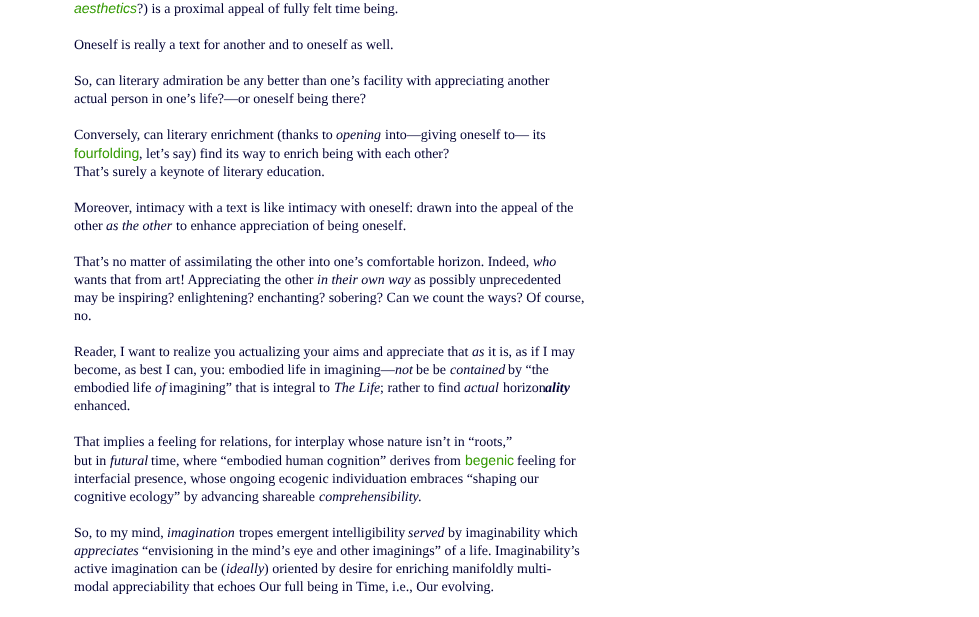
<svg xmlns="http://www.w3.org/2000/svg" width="979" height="617">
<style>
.a{font:italic 14px Liberation Sans;fill:#390}
.b{font:14px Liberation Serif;fill:#003}
.c{font:italic 14px Liberation Serif;fill:#003}
.d{font:14px Liberation Sans;fill:#390}
.e{font:italic bold 14px Liberation Serif;fill:#003}
</style>
<rect width="100%" height="100%" fill="#fff"/>
<text class="a" x="74" y="13">aesthetics</text>
<text class="b" x="137" y="13">?) is a proximal appeal of fully felt time being.</text>
<text class="b" x="74" y="49">Oneself is really a text for another and to oneself as well.</text>
<text class="b" x="74" y="85">So, can literary admiration be any better than one’s facility with appreciating another</text>
<text class="b" x="74" y="103">actual person in one’s life?—or oneself being there?</text>
<text class="b" x="74" y="139">Conversely, can literary enrichment (thanks to</text>
<text class="c" x="336" y="139">opening</text>
<text class="b" x="385" y="139">into—giving oneself to— its</text>
<text class="d" x="74" y="158">fourfolding</text>
<text class="b" x="139" y="158">, let’s say) find its way to enrich being with each other?</text>
<text class="b" x="74" y="176">That’s surely a keynote of literary education.</text>
<text class="b" x="74" y="212">Moreover, intimacy with a text is like intimacy with oneself: drawn into the appeal of the</text>
<text class="b" x="74" y="230">other</text>
<text class="c" x="106" y="230">as the other</text>
<text class="b" x="176" y="230">to enhance appreciation of being oneself.</text>
<text class="b" x="74" y="266">That’s no matter of assimilating the other into one’s comfortable horizon. Indeed,</text>
<text class="c" x="533" y="266">who</text>
<text class="b" x="74" y="284">wants that from art! Appreciating the other</text>
<text class="c" x="317" y="284">in their own way</text>
<text class="b" x="414" y="284">as possibly unprecedented</text>
<text class="b" x="74" y="302">may be inspiring? enlightening? enchanting? sobering? Can we count the ways? Of course,</text>
<text class="b" x="74" y="320">no.</text>
<text class="b" x="74" y="356">Reader, I want to realize you actualizing your aims and appreciate that</text>
<text class="c" x="472" y="356">as</text>
<text class="b" x="488" y="356">it is, as if I may</text>
<text class="b" x="74" y="374">become, as best I can, you: embodied life in imagining—</text>
<text class="c" x="395" y="374">not</text>
<text class="b" x="416" y="374">be be</text>
<text class="c" x="450" y="374">contained</text>
<text class="b" x="508" y="374">by “the</text>
<text class="b" x="74" y="392">embodied life</text>
<text class="c" x="155" y="392">of</text>
<text class="b" x="169" y="392">imagining” that is integral to</text>
<text class="c" x="334" y="392">The Life</text>
<text class="b" x="380" y="392">; rather to find</text>
<text class="c" x="464" y="392">actual</text>
<text class="b" x="503" y="392">horizon</text>
<text class="e" x="545" y="392">ality</text>
<text class="b" x="74" y="410">enhanced.</text>
<text class="b" x="74" y="446">That implies a feeling for relations, for interplay whose nature isn’t in “roots,”</text>
<text class="b" x="74" y="465">but in</text>
<text class="c" x="110" y="465">futural</text>
<text class="b" x="151" y="465">time, where “embodied human cognition” derives from</text>
<text class="d" x="465" y="465">begenic</text>
<text class="b" x="517" y="465">feeling for</text>
<text class="b" x="74" y="483">interfacial presence, whose ongoing ecogenic individuation embraces “shaping our</text>
<text class="b" x="74" y="501">cognitive ecology” by advancing shareable</text>
<text class="c" x="319" y="501">comprehensibility</text>
<text class="b" x="418" y="501">.</text>
<text class="b" x="74" y="537">So, to my mind,</text>
<text class="c" x="167" y="537">imagination</text>
<text class="b" x="239" y="537">tropes emergent intelligibility</text>
<text class="c" x="408" y="537">served</text>
<text class="b" x="448" y="537">by imaginability which</text>
<text class="c" x="74" y="555">appreciates</text>
<text class="b" x="142" y="555">“envisioning in the mind’s eye and other imaginings” of a life. Imaginability’s</text>
<text class="b" x="74" y="573">active imagination can be (</text>
<text class="c" x="226" y="573">ideally</text>
<text class="b" x="264" y="573">) oriented by desire for enriching manifoldly multi-</text>
<text class="b" x="74" y="591">modal appreciability that echoes Our full being in Time, i.e., Our evolving.</text>
</svg>
